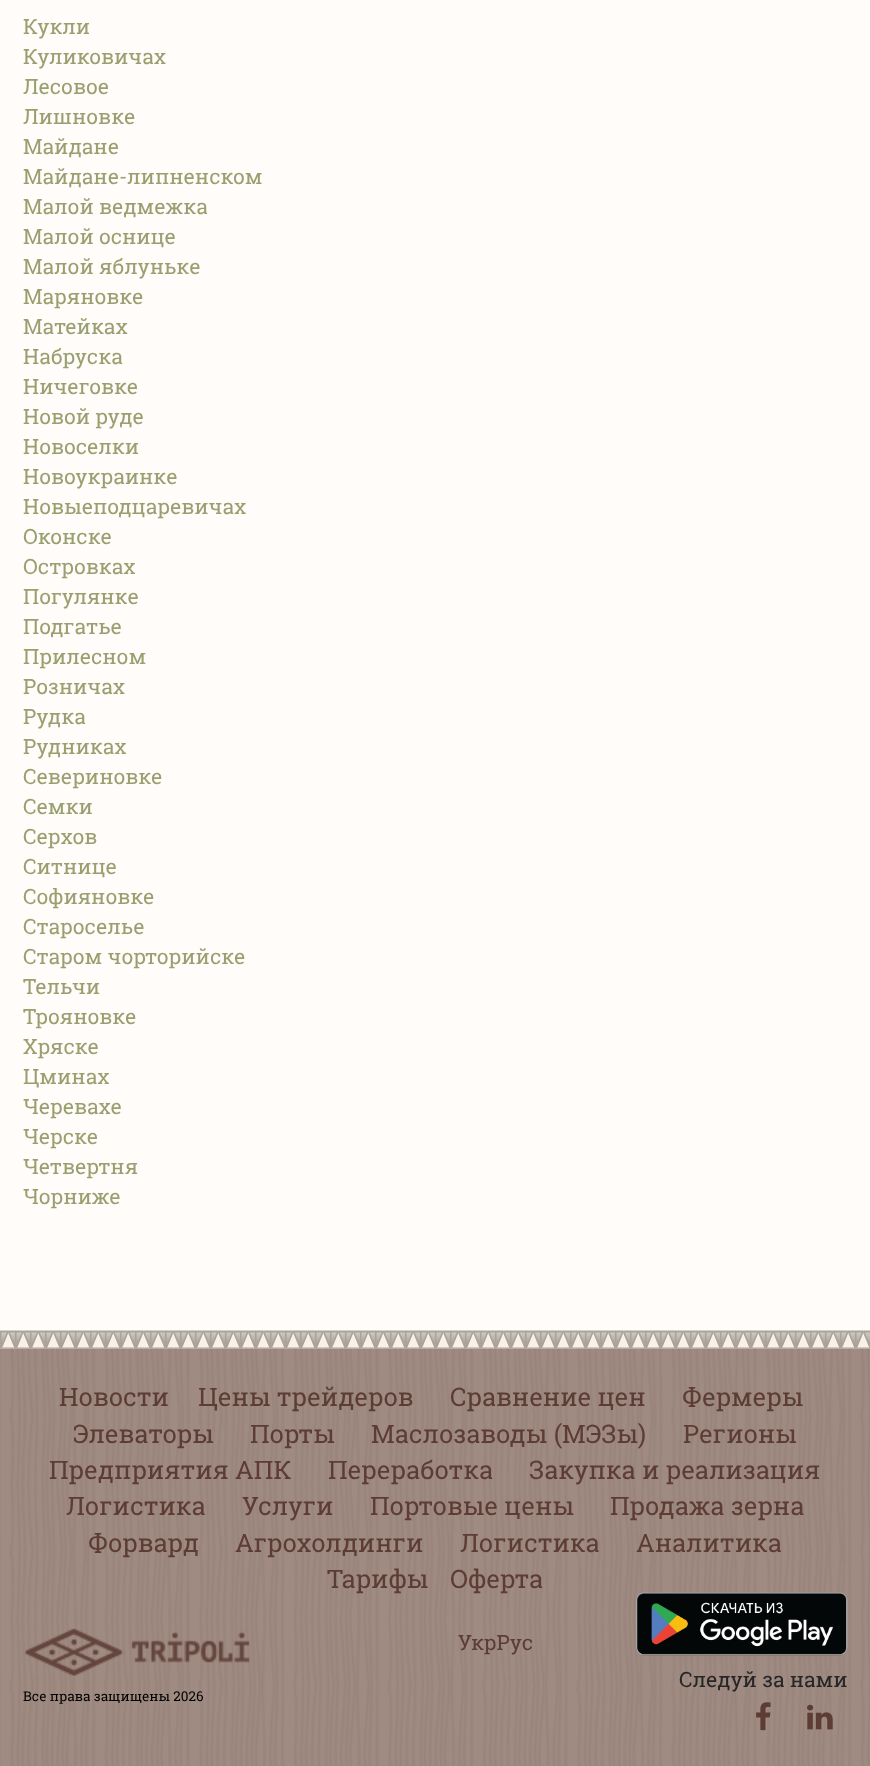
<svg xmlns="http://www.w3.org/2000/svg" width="870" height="1766">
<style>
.a{font:21px Roboto Slab;fill:#99a070}
.b{font:25.5px Roboto Slab;fill:#5c3c35}
.c{font:21px Roboto Slab;fill:#5c3c35}
.d{font:21px Roboto Slab;fill:#262626}
.e{font:13.5px Roboto Slab;fill:#000}
</style>
<rect width="100%" height="100%" fill="#fffcf9"/>
<image href="1.png" x="0" y="1330" width="870" height="19"/>
<image href="2.png" x="0" y="1348" width="870" height="418"/>
<image href="3.png" x="636" y="1592" width="212" height="64"/>
<image href="4.png" x="756" y="1702" width="15" height="29"/>
<image href="5.png" x="807" y="1704" width="26" height="26"/>
<image href="6.png" x="25" y="1628" width="225" height="48"/>
<text class="a" x="23" y="34">Кукли</text>
<text class="a" x="23" y="64">Куликовичах</text>
<text class="a" x="23" y="94">Лесовое</text>
<text class="a" x="23" y="124">Лишновке</text>
<text class="a" x="23" y="154">Майдане</text>
<text class="a" x="23" y="184">Майдане-липненском</text>
<text class="a" x="23" y="214">Малой ведмежка</text>
<text class="a" x="23" y="244">Малой оснице</text>
<text class="a" x="23" y="274">Малой яблуньке</text>
<text class="a" x="23" y="304">Маряновке</text>
<text class="a" x="23" y="334">Матейках</text>
<text class="a" x="23" y="364">Набруска</text>
<text class="a" x="23" y="394">Ничеговке</text>
<text class="a" x="23" y="424">Новой руде</text>
<text class="a" x="23" y="454">Новоселки</text>
<text class="a" x="23" y="484">Новоукраинке</text>
<text class="a" x="23" y="514">Новыеподцаревичах</text>
<text class="a" x="23" y="544">Оконске</text>
<text class="a" x="23" y="574">Островках</text>
<text class="a" x="23" y="604">Погулянке</text>
<text class="a" x="23" y="634">Подгатье</text>
<text class="a" x="23" y="664">Прилесном</text>
<text class="a" x="23" y="694">Розничах</text>
<text class="a" x="23" y="724">Рудка</text>
<text class="a" x="23" y="754">Рудниках</text>
<text class="a" x="23" y="784">Севериновке</text>
<text class="a" x="23" y="814">Семки</text>
<text class="a" x="23" y="844">Серхов</text>
<text class="a" x="23" y="874">Ситнице</text>
<text class="a" x="23" y="904">Софияновке</text>
<text class="a" x="23" y="934">Староселье</text>
<text class="a" x="23" y="964">Старом чорторийске</text>
<text class="a" x="23" y="994">Тельчи</text>
<text class="a" x="23" y="1024">Трояновке</text>
<text class="a" x="23" y="1054">Хряске</text>
<text class="a" x="23" y="1084">Цминах</text>
<text class="a" x="23" y="1114">Черевахе</text>
<text class="a" x="23" y="1144">Черске</text>
<text class="a" x="23" y="1174">Четвертня</text>
<text class="a" x="23" y="1204">Чорниже</text>
<text class="b" x="59" y="1406">Новости</text>
<text class="b" x="198" y="1406">Цены трейдеров</text>
<text class="b" x="450" y="1406">Сравнение цен</text>
<text class="b" x="682" y="1406">Фермеры</text>
<text class="b" x="73" y="1443">Элеваторы</text>
<text class="b" x="250" y="1443">Порты</text>
<text class="b" x="371" y="1443">Маслозаводы (МЭЗы)</text>
<text class="b" x="683" y="1443">Регионы</text>
<text class="b" x="49" y="1479">Предприятия АПК</text>
<text class="b" x="328" y="1479">Переработка</text>
<text class="b" x="529" y="1479">Закупка и реализация</text>
<text class="b" x="66" y="1515">Логистика</text>
<text class="b" x="242" y="1515">Услуги</text>
<text class="b" x="370" y="1515">Портовые цены</text>
<text class="b" x="610" y="1515">Продажа зерна</text>
<text class="b" x="88" y="1552">Форвард</text>
<text class="b" x="235" y="1552">Агрохолдинги</text>
<text class="b" x="460" y="1552">Логистика</text>
<text class="b" x="636" y="1552">Аналитика</text>
<text class="b" x="327" y="1588">Тарифы</text>
<text class="b" x="450" y="1588">Оферта</text>
<text class="c" x="458" y="1650">УкрРус</text>
<text class="d" x="679" y="1687">Следуй за нами</text>
<text class="e" x="23" y="1701">Все права защищены 2026</text>
</svg>
